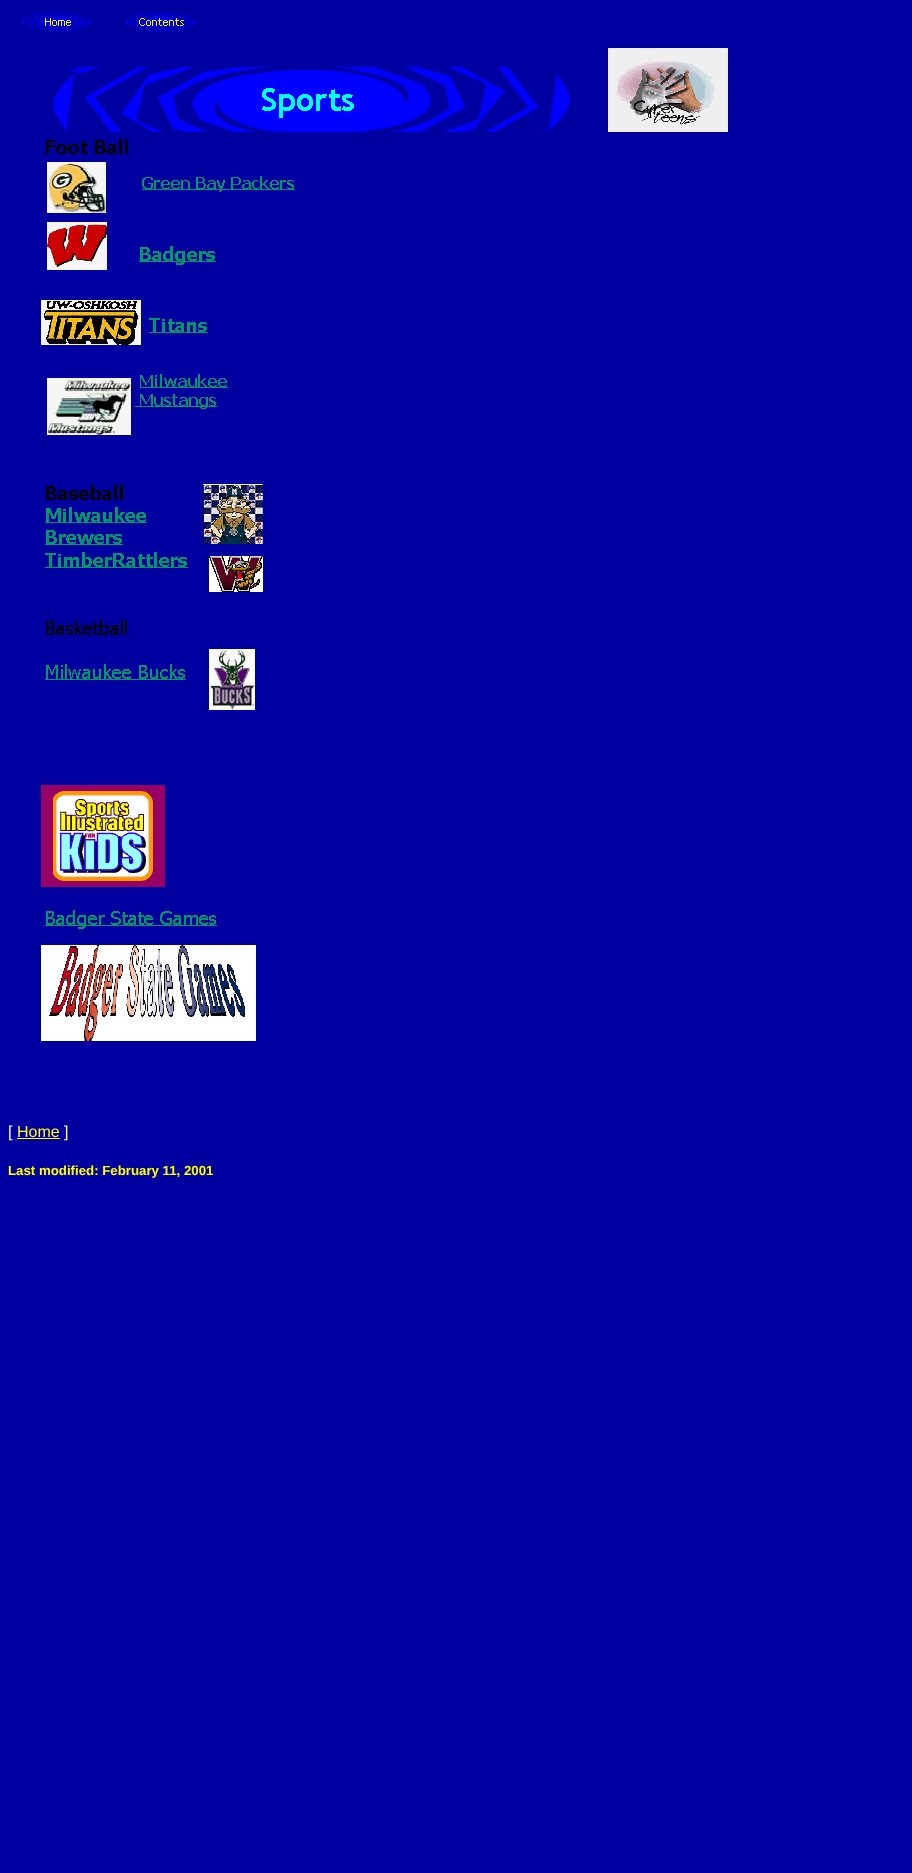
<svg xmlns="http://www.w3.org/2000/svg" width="912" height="1873">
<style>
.a{font:16px Liberation Sans;fill:#fff}
.b{font:16px Liberation Sans;fill:#ff0}
.c{font:bold 13.25px Liberation Sans;fill:#ff0}
</style>
<rect width="100%" height="100%" fill="#0000a0"/>
<image href="1.png" x="22" y="12" width="70" height="20"/>
<image href="2.png" x="126" y="12" width="70" height="20"/>
<image href="3.png" x="53" y="67" width="517" height="65"/>
<image href="4.png" x="608" y="48" width="120" height="84"/>
<image href="5.png" x="41" y="139" width="254" height="296"/>
<image href="6.png" x="45" y="484" width="218" height="108"/>
<image href="7.png" x="45" y="620" width="210" height="90"/>
<image href="8.png" x="41" y="785" width="124" height="102"/>
<image href="9.png" x="41" y="910" width="215" height="131"/>
<path fill="#ff0" d="M17 1138h43v1H17z"/>
<text class="a" x="8" y="1137">[</text>
<text class="b" x="17" y="1137">Home</text>
<text class="a" x="64" y="1137">]</text>
<text class="c" x="8" y="1175">Last modified: February 11, 2001</text>
</svg>
